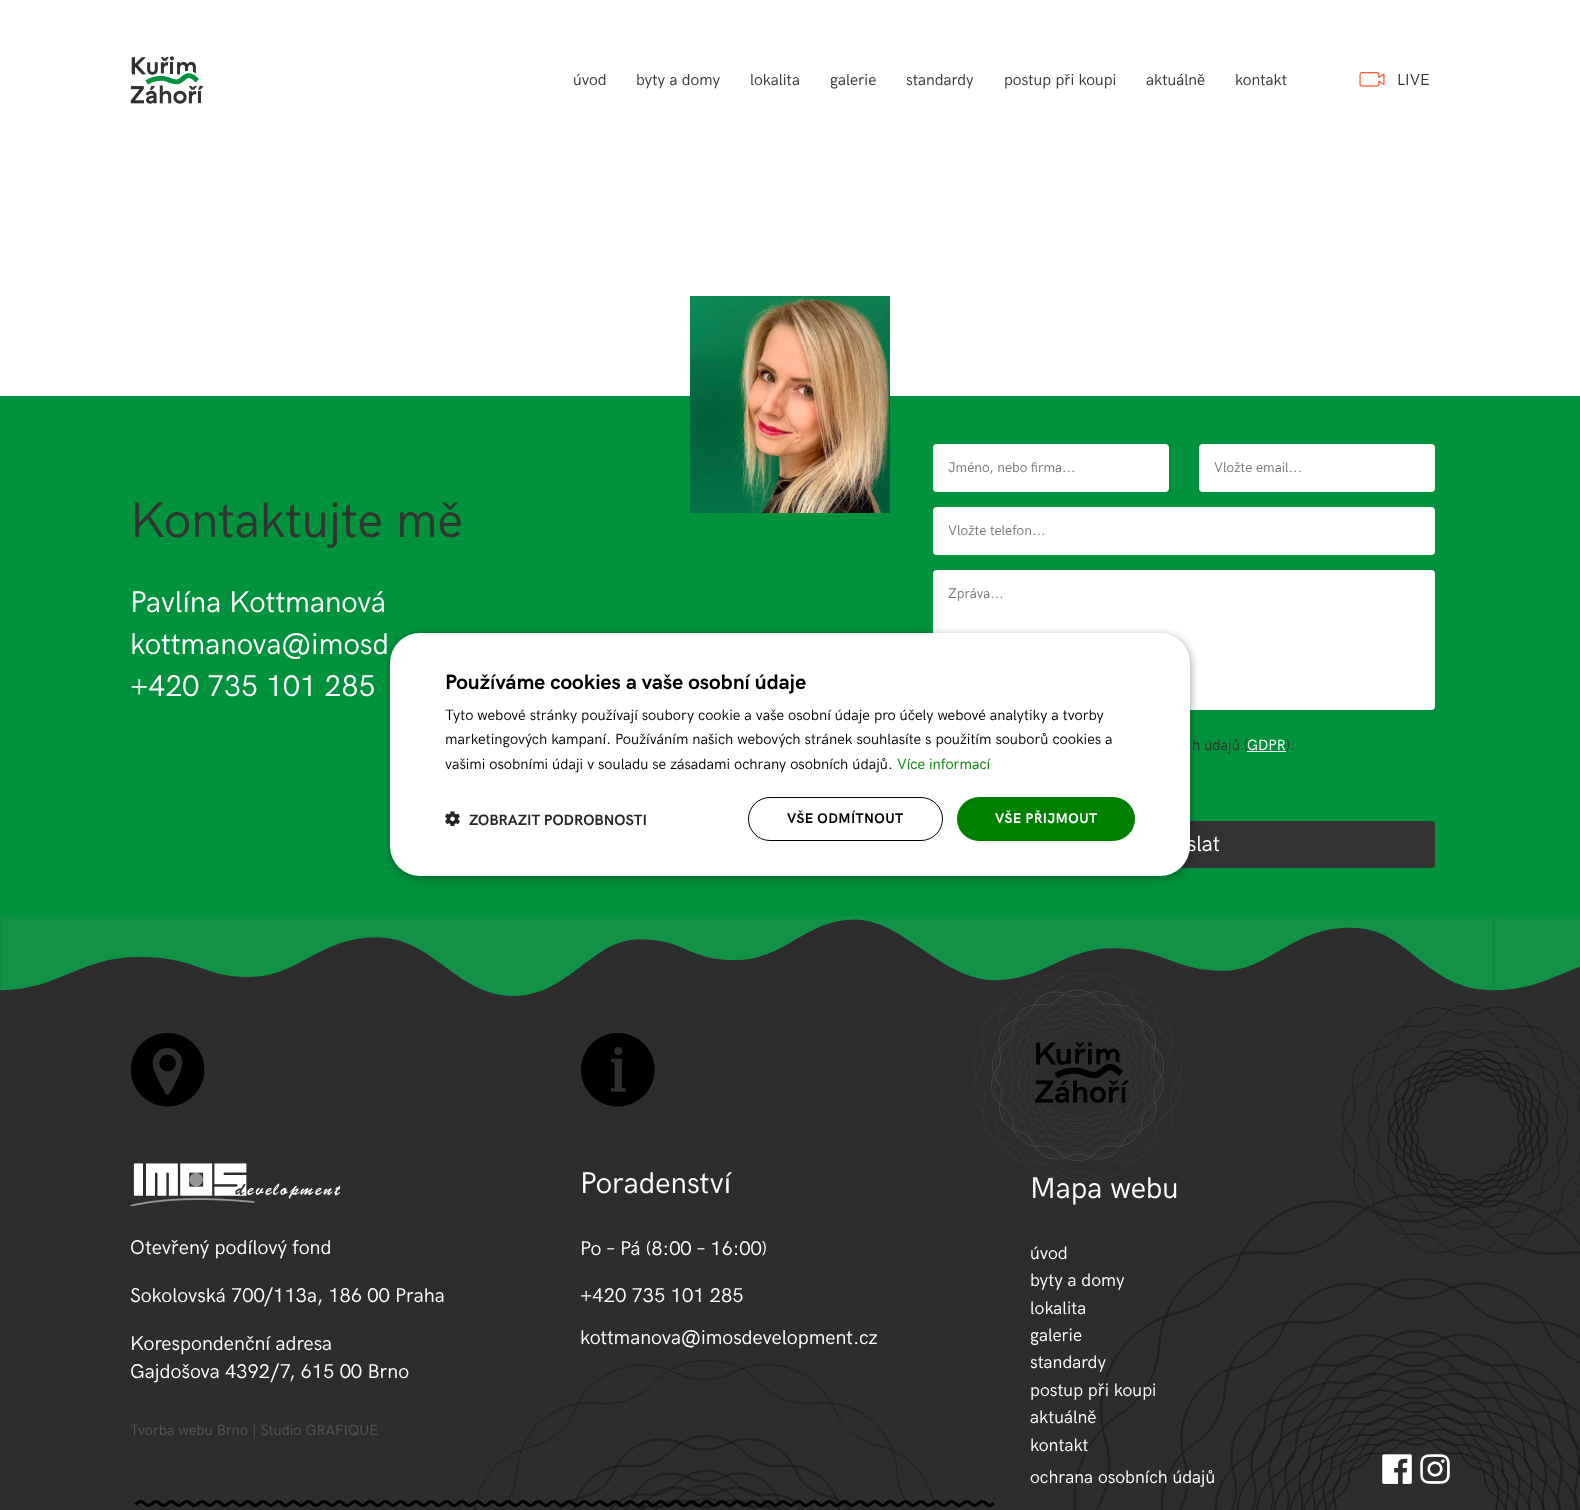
<svg xmlns="http://www.w3.org/2000/svg" width="1580" height="1510">
<style>
.a{font:16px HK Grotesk;fill:#333}
.b{font:50px HK Grotesk;fill:#333}
.c{font:30px HK Grotesk;fill:#fff}
.d{font:14px HK Grotesk;fill:#757575}
.e{font:15px HK Grotesk;fill:#333}
.f{font:15px HK Grotesk;fill:#fff}
.g{font:22px HK Grotesk;fill:#fff}
.h{font:bold 21px HK Grotesk;fill:#000}
.i{font:15px HK Grotesk;fill:#000}
.j{font:15px HK Grotesk;fill:#008000}
.k{font:bold 15px HK Grotesk;fill:#262626}
.l{font:bold 14px HK Grotesk;letter-spacing:0.4px;fill:#000}
.m{font:bold 14px HK Grotesk;letter-spacing:0.4px;fill:#fff}
.n{font:20px HK Grotesk;fill:#fff}
.o{font:15px HK Grotesk;fill:#555}
.p{font:18px HK Grotesk;fill:#fff}
</style>
<rect width="100%" height="100%" fill="#fff"/>
<image href="1.png" x="130" y="56" width="74" height="48"/>
<image href="2.png" x="1359" y="72" width="26" height="15"/>
<path fill="#00923d" d="M0 396h1580v520H0z"/>
<image href="3.png" x="690" y="296" width="200" height="217"/>
<rect fill="#fff" x="933" y="444" width="236" height="48" rx="4"/>
<rect fill="#fff" x="1199" y="444" width="236" height="48" rx="4"/>
<rect fill="#fff" x="933" y="507" width="502" height="48" rx="4"/>
<rect fill="#fff" x="933" y="570" width="502" height="140" rx="4"/>
<path fill="#fff" d="M1247 751h39v1H1247z"/>
<rect fill="#333" x="933" y="821" width="502" height="47" rx="4"/>
<rect fill="#00000059" filter="blur(4px)" x="391" y="635" width="800" height="243" rx="30"/>
<rect fill="#fff" x="390" y="633" width="800" height="243" rx="30"/>
<image href="4.png" x="445" y="811" width="15" height="15"/>
<rect fill="none" stroke="#000" x="748.5" y="797.5" width="194" height="43" rx="21.5"/>
<rect fill="#008000" x="957" y="797" width="178" height="44" rx="22"/>
<path fill="#2d2d2d" d="M0 916h1580v594H0z"/>
<image href="5.png" x="474" y="1004" width="1106" height="506"/>
<image href="6.png" x="0" y="916" width="1580" height="80"/>
<image href="7.png" x="134" y="1500" width="861" height="7"/>
<image href="8.png" x="130" y="1033" width="75" height="74"/>
<image href="9.png" x="130" y="1163" width="210" height="43"/>
<image href="10.png" x="581" y="1033" width="74" height="74"/>
<image href="13.png" x="1382" y="1454" width="30" height="30"/>
<image href="14.png" x="1420" y="1454" width="30" height="30"/>
<text class="a" x="573" y="85">úvod</text>
<text class="a" x="636" y="85">byty a domy</text>
<text class="a" x="750" y="85">lokalita</text>
<text class="a" x="830" y="85">galerie</text>
<text class="a" x="906" y="85">standardy</text>
<text class="a" x="1004" y="85">postup při koupi</text>
<text class="a" x="1146" y="85">aktuálně</text>
<text class="a" x="1235" y="85">kontakt</text>
<text class="a" x="1397" y="85">LIVE</text>
<text class="b" x="130" y="537">Kontaktujte mě</text>
<text class="c" x="130" y="612">Pavlína Kottmanová</text>
<text class="c" x="130" y="654">kottmanova@imosd</text>
<text class="c" x="130" y="696">+420 735 101 285</text>
<text class="d" x="948" y="472">Jméno, nebo firma...</text>
<text class="d" x="1214" y="472">Vložte email...</text>
<text class="d" x="948" y="535">Vložte telefon...</text>
<text class="d" x="948" y="598">Zpráva...</text>
<text class="e" x="1192" y="750">h údajů (</text>
<text class="f" x="1247" y="750">GDPR</text>
<text class="e" x="1286" y="750">).</text>
<text class="g" x="1187" y="851">slat</text>
<text class="h" x="445" y="689">Používáme cookies a vaše osobní údaje</text>
<text class="i" x="445" y="720">Tyto webové stránky používají soubory cookie a vaše osobní údaje pro účely webové analytiky a tvorby</text>
<text class="i" x="445" y="744">marketingových kampaní. Používáním našich webových stránek souhlasíte s použitím souborů cookies a</text>
<text class="i" x="445" y="769">vašimi osobními údaji v souladu se zásadami ochrany osobních údajů.</text>
<text class="j" x="897" y="769">Více informací</text>
<text class="k" x="469" y="825">ZOBRAZIT PODROBNOSTI</text>
<text class="l" x="787" y="823">VŠE ODMÍTNOUT</text>
<text class="m" x="995" y="823">VŠE PŘIJMOUT</text>
<text class="n" x="130" y="1254">Otevřený podílový fond</text>
<text class="n" x="130" y="1302">Sokolovská 700/113a, 186 00 Praha</text>
<text class="n" x="130" y="1350">Korespondenční adresa</text>
<text class="n" x="130" y="1378">Gajdošova 4392/7, 615 00 Brno</text>
<text class="o" x="130" y="1435">Tvorba webu Brno | Studio GRAFIQUE</text>
<text class="c" x="580" y="1193">Poradenství</text>
<text class="n" x="580" y="1255">Po – Pá (8:00 – 16:00)</text>
<text class="n" x="580" y="1302">+420 735 101 285</text>
<text class="n" x="580" y="1344">kottmanova@imosdevelopment.cz</text>
<text class="c" x="1030" y="1198">Mapa webu</text>
<image href="11.png" x="973" y="972" width="209" height="208"/>
<image href="12.png" x="1035" y="1042" width="94" height="61"/>
<text class="p" x="1030" y="1259">úvod</text>
<text class="p" x="1030" y="1286">byty a domy</text>
<text class="p" x="1030" y="1314">lokalita</text>
<text class="p" x="1030" y="1341">galerie</text>
<text class="p" x="1030" y="1368">standardy</text>
<text class="p" x="1030" y="1396">postup při koupi</text>
<text class="p" x="1030" y="1423">aktuálně</text>
<text class="p" x="1030" y="1451">kontakt</text>
<text class="p" x="1030" y="1483">ochrana osobních údajů</text>
</svg>
